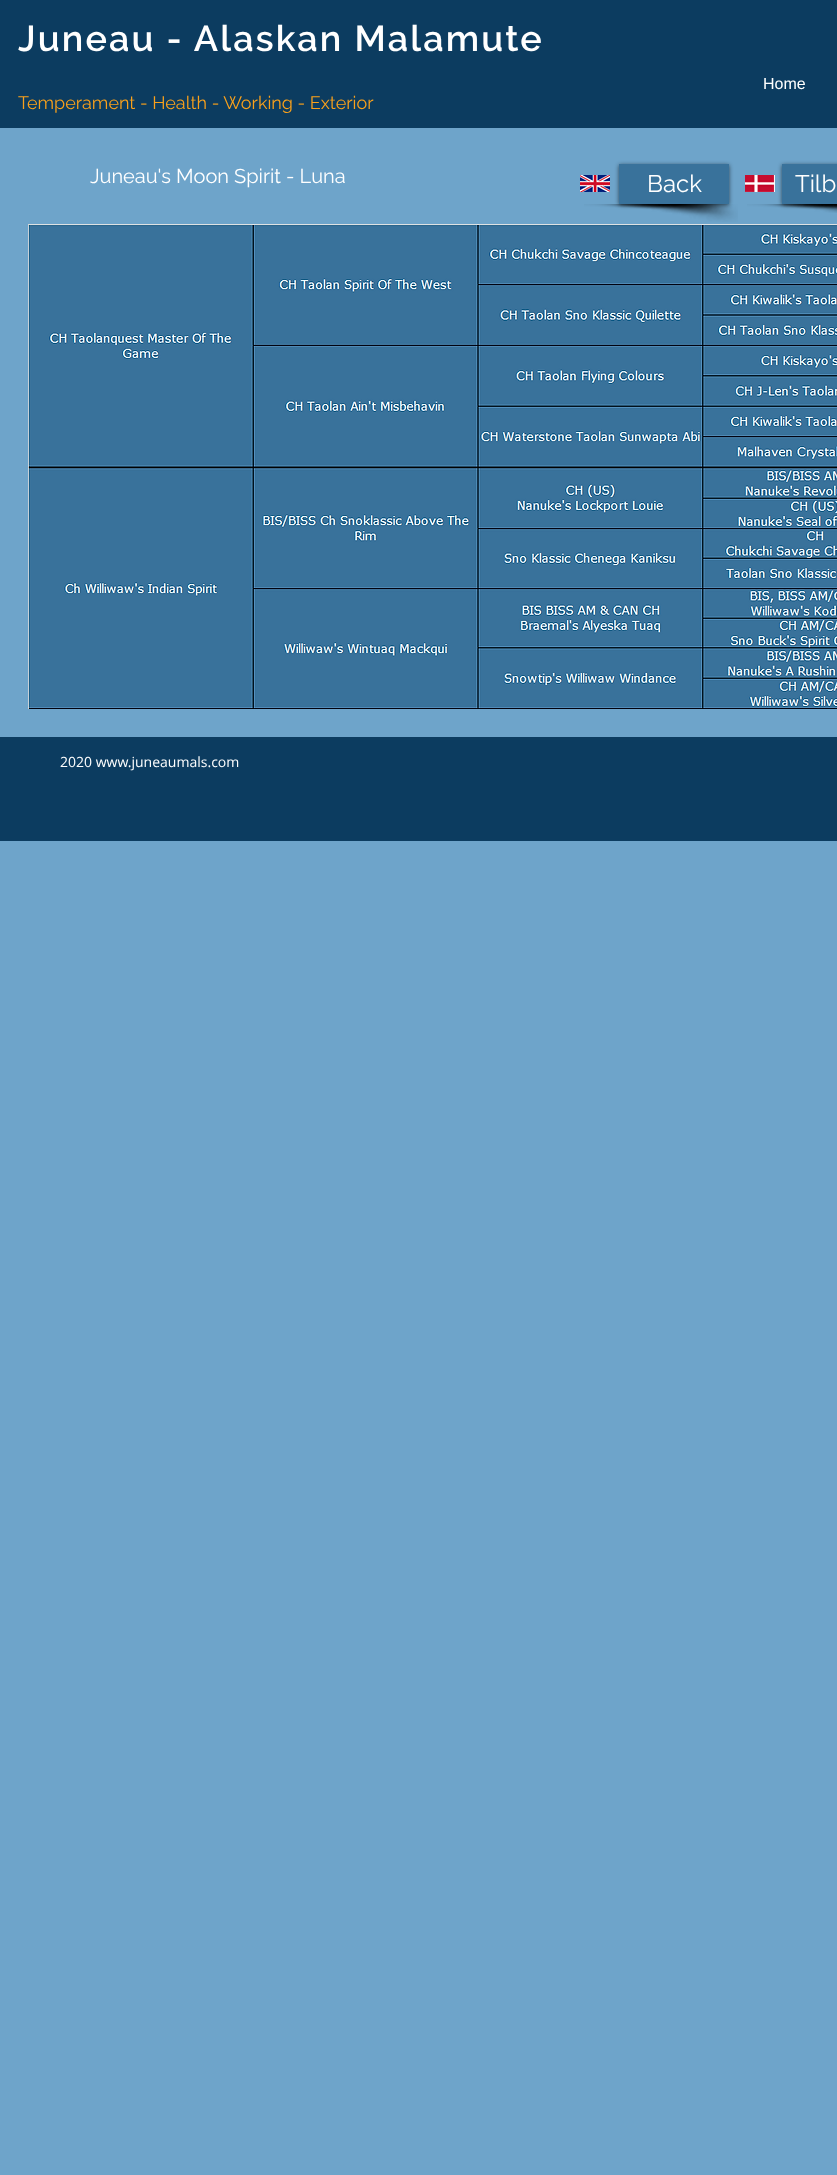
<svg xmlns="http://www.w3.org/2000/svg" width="837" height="2175">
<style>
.a{font:600 36px Raleway;letter-spacing:2.15px;fill:#fff}
.b{font:16px Liberation Sans;fill:#fff}
.c{font:18px Raleway;fill:#faa11b}
.d{font:20px Raleway;fill:#fff}
.e{font:24px Raleway;fill:#fff}
.f{font:14px Open Sans;fill:#fff}
</style>
<rect width="100%" height="100%" fill="#6ea4ca"/>
<path fill="#0c3c60" d="M0 0h837v128H0z"/>
<image href="1.png" x="580" y="175" width="30" height="17"/>
<image href="2.png" x="584" y="204" width="154" height="18"/>
<path fill="#00000099" filter="blur(2px)" d="M619 165h110v40H619z"/>
<path fill="#39729b" d="M619 164h110v40H619z"/>
<image href="3.png" x="745" y="175" width="30" height="17"/>
<image href="4.png" x="747" y="204" width="90" height="9"/>
<path fill="#00000099" filter="blur(2px)" d="M782 165h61v40H782z"/>
<path fill="#39729b" d="M782 164h55v40H782z"/>
<image href="5.png" x="28" y="224" width="809" height="485"/>
<path fill="#0c3c60" d="M0 737h837v104H0z"/>
<text class="a" x="18" y="51">Juneau - Alaskan Malamute</text>
<text class="b" x="763" y="89">Home</text>
<text class="c" x="18" y="109">Temperament - Health - Working - Exterior</text>
<text class="d" x="90" y="183">Juneau's Moon Spirit - Luna</text>
<text class="e" x="647" y="192">Back</text>
<text class="e" x="795" y="192">Tilb</text>
<text class="f" x="60" y="767">2020 www.juneaumals.com</text>
</svg>
